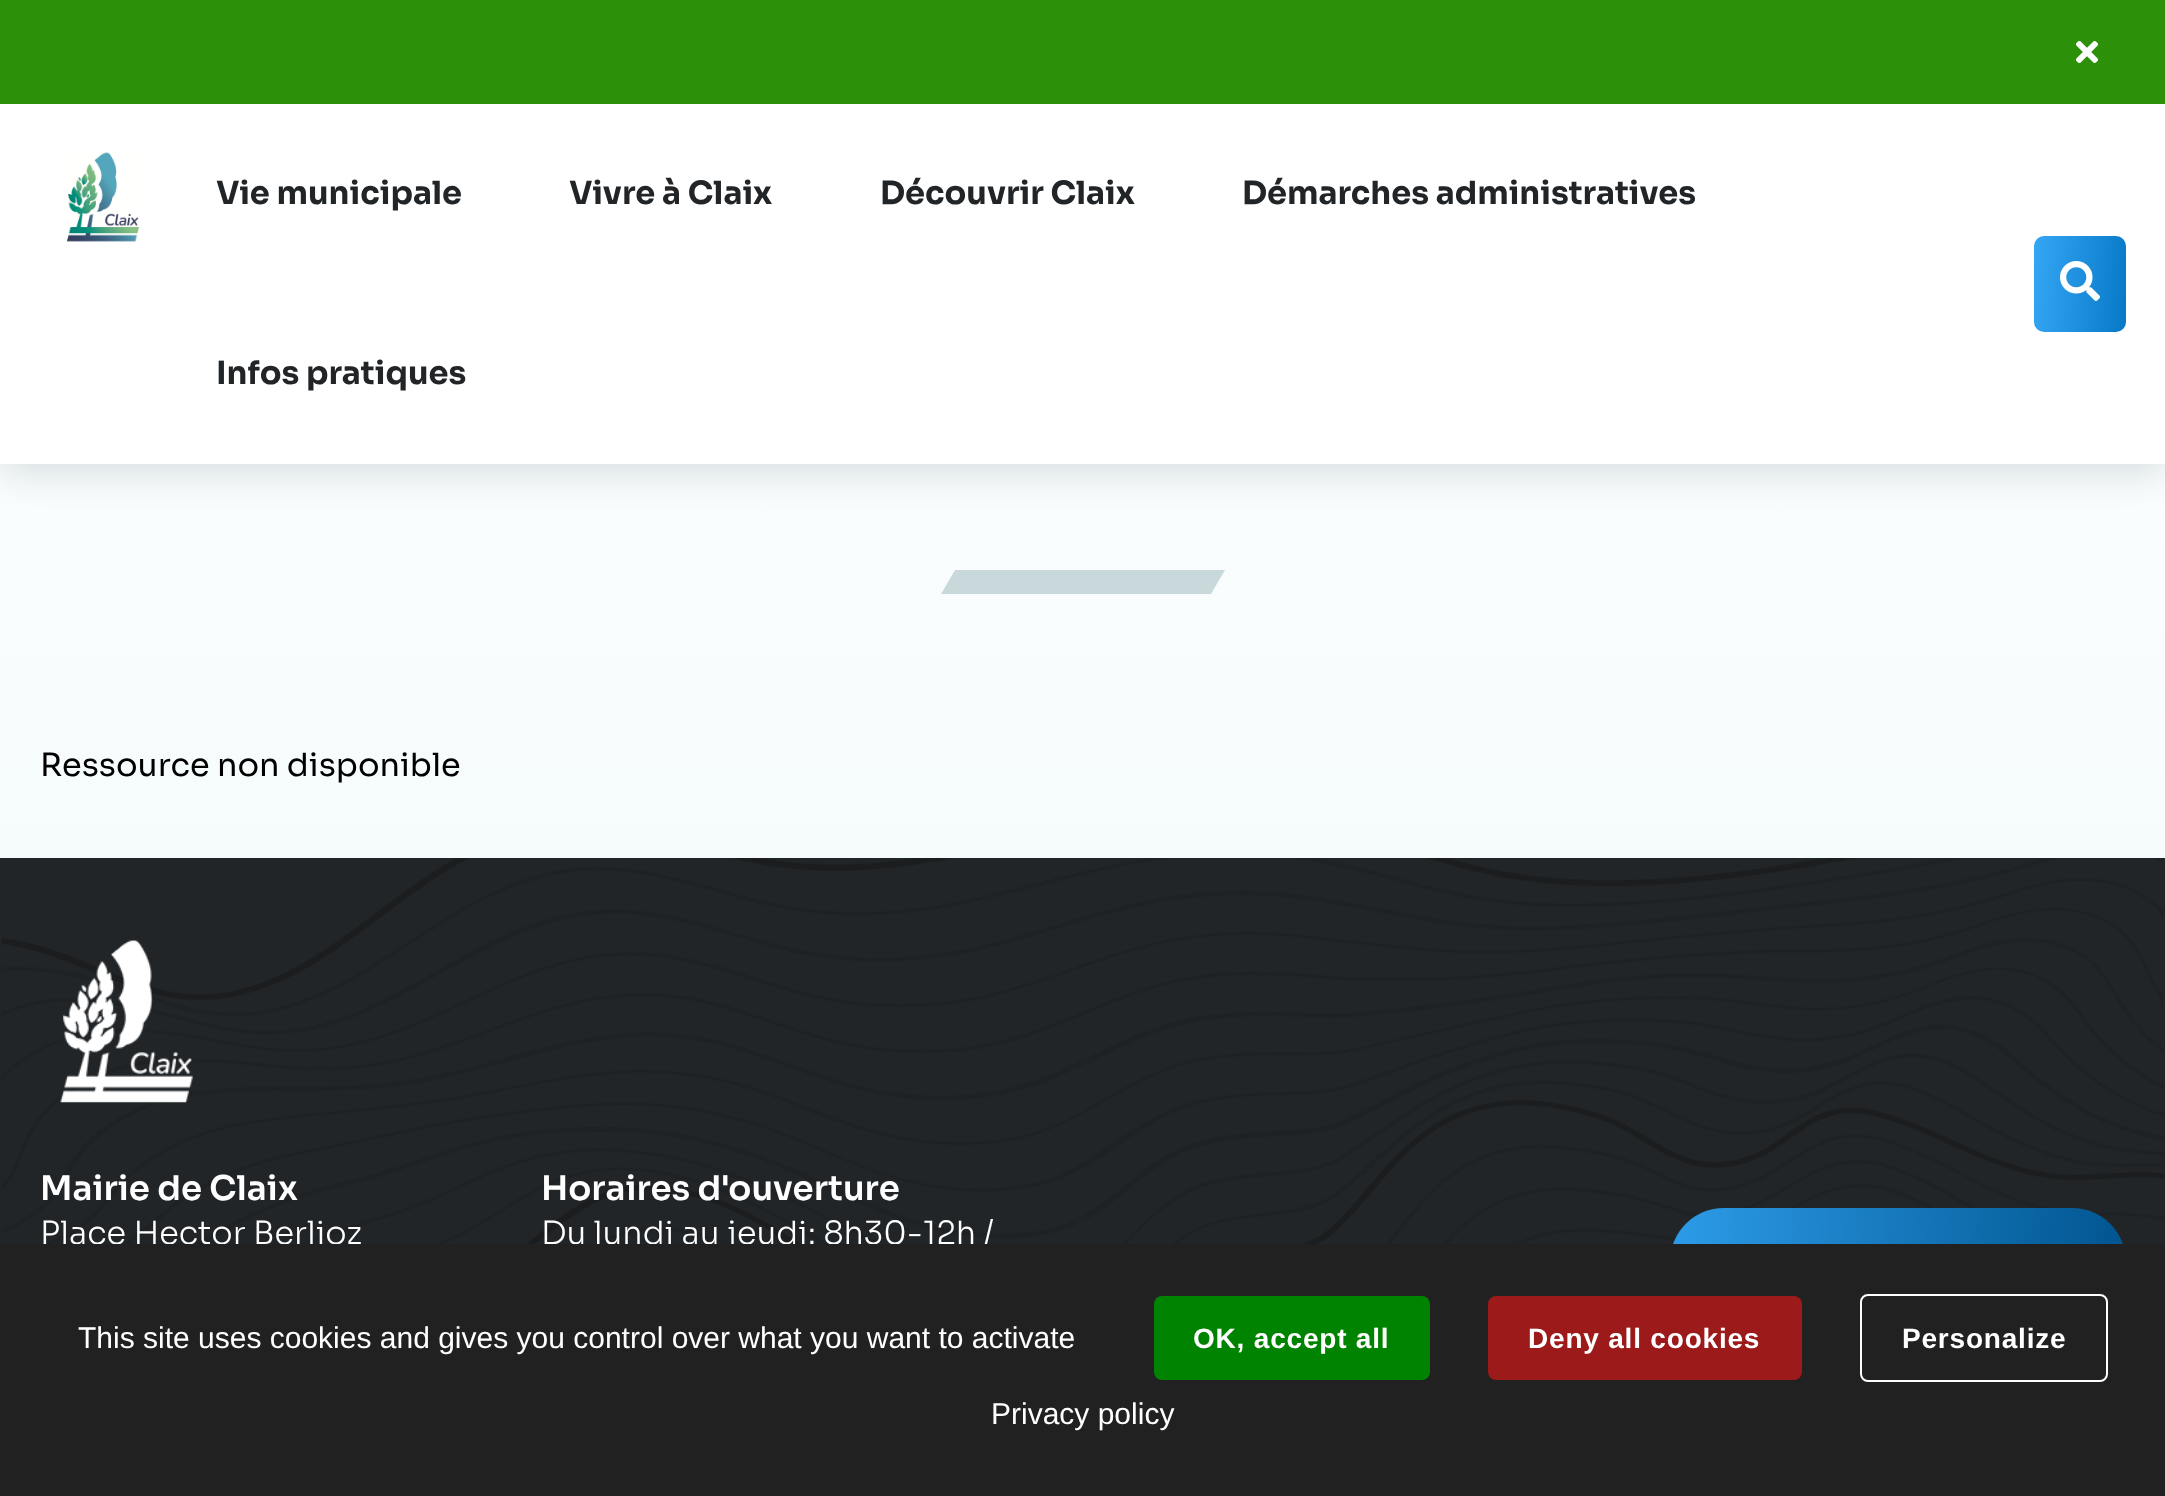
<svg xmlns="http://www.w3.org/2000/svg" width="2165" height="1496">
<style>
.a{font:bold 32px Sora;fill:#212528}
.b{font:32px Sora;fill:#000}
.c{font:600 34px Sora;fill:#fff}
.d{font:300 32px Sora;fill:#fff}
.e{font:30px Liberation Sans;fill:#fff}
.f{font:bold 28px Liberation Sans;letter-spacing:0.8px;fill:#fff}
</style>
<defs>
<linearGradient id="g1" gradientUnits="userSpaceOnUse" x1="1083" y1="180" x2="1083" y2="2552"><stop offset="0" stop-color="#fff"/><stop offset="1" stop-color="#def1f3"/></linearGradient>
<linearGradient id="g2" gradientUnits="userSpaceOnUse" x1="2031" y1="280" x2="2129" y2="288"><stop offset="0" stop-color="#35a6f3"/><stop offset="1" stop-color="#0779c7"/></linearGradient>
<linearGradient id="g3" gradientUnits="userSpaceOnUse" x1="1667" y1="1245" x2="2129" y2="1279"><stop offset="0" stop-color="#2d9ce9"/><stop offset="1" stop-color="#00548e"/></linearGradient>
</defs>
<rect width="100%" height="100%" fill="#fff"/>
<path fill="url(#g1)" d="M0 464h2165v394H0z"/>
<path fill="#abbdbf80" filter="blur(20px)" d="M0 8h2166v464H0z"/>
<path fill="#fff" d="M0 104h2165v360H0z"/>
<path fill="#2c9108" d="M0 0h2165v104H0z"/>
<image href="1.png" x="2076" y="41" width="22" height="22"/>
<image href="2.png" x="66" y="152" width="73" height="90"/>
<rect fill="url(#g2)" x="2034" y="236" width="92" height="96" rx="10"/>
<image href="3.png" x="2060" y="261" width="40" height="40"/>
<path fill="#c9d9db" d="M955 570h270l-14 24h-270z"/>
<path fill="#212528" d="M0 858h2165v386H0z"/>
<image href="4.png" x="1" y="858" width="2163" height="386"/>
<image href="5.png" x="60" y="940" width="133" height="163"/>
<rect fill="url(#g3)" x="1670" y="1208" width="456" height="108" rx="54"/>
<text class="a" x="216" y="204">Vie municipale</text>
<text class="a" x="569" y="204">Vivre à Claix</text>
<text class="a" x="880" y="204">Découvrir Claix</text>
<text class="a" x="1242" y="204">Démarches administratives</text>
<text class="a" x="216" y="384">Infos pratiques</text>
<text class="b" x="40" y="776">Ressource non disponible</text>
<text class="c" x="40" y="1200">Mairie de Claix</text>
<text class="d" x="40" y="1244">Place Hector Berlioz</text>
<text class="c" x="541" y="1200">Horaires d'ouverture</text>
<text class="d" x="541" y="1244">Du lundi au jeudi: 8h30-12h /</text>
<path fill="#212121" d="M0 1244h2165v252H0z"/>
<text class="e" x="78" y="1348">This site uses cookies and gives you control over what you want to activate</text>
<rect fill="#008300" x="1154" y="1296" width="276" height="84" rx="8"/>
<text class="f" x="1193" y="1348">OK, accept all</text>
<rect fill="#9c1a1a" x="1488" y="1296" width="314" height="84" rx="8"/>
<text class="f" x="1528" y="1348">Deny all cookies</text>
<rect fill="none" stroke="#fff" stroke-width="2" x="1861" y="1295" width="246" height="86" rx="7"/>
<text class="f" x="1902" y="1348">Personalize</text>
<text class="e" x="991" y="1424">Privacy policy</text>
</svg>
